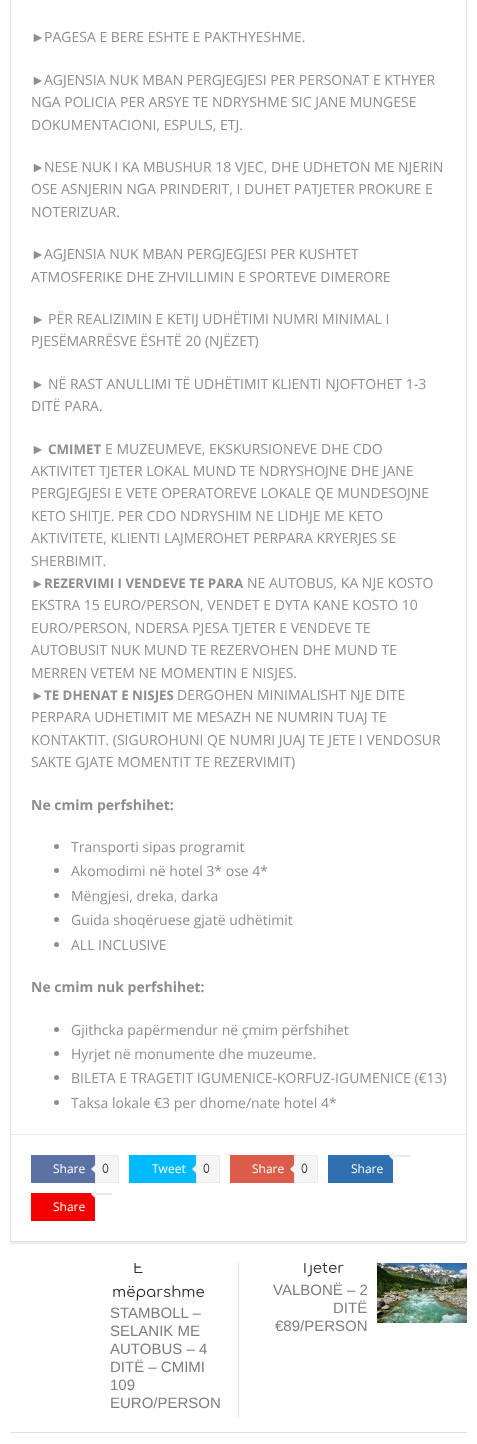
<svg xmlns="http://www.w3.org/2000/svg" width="477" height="1444">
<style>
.a{font:14px Liberation Sans;fill:#8e8e8e}
.b{font:14px Open Sans;fill:#8e8e8e}
.c{font:bold 13.3px Open Sans;fill:#8e8e8e}
.d{font:13.3px Liberation Sans;fill:#8e8e8e}
.e{font:bold 14px Open Sans;fill:#8e8e8e}
.f{font:12px Open Sans;fill:#fff}
.g{font:12px Comfortaa;fill:#373c43}
.h{font:15px Comfortaa;fill:#2d2d2d}
.i{font:15px Liberation Sans;fill:#7e7e7e}
</style>
<defs>
<clipPath id="clip1"><path d="M10 1263h457v154H10z"/></clipPath>
</defs>
<rect width="100%" height="100%" fill="#fff"/>
<path fill="none" stroke="#e0e0e0" d="M10.5 -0.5h456v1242H10.5z"/>
<circle fill="#8e8e8e" cx="56.5" cy="846.5" r="2.5"/>
<circle fill="#8e8e8e" cx="56.5" cy="870.5" r="2.5"/>
<circle fill="#8e8e8e" cx="56.5" cy="895.5" r="2.5"/>
<circle fill="#8e8e8e" cx="56.5" cy="919.5" r="2.5"/>
<circle fill="#8e8e8e" cx="56.5" cy="944.5" r="2.5"/>
<circle fill="#8e8e8e" cx="56.5" cy="1029.5" r="2.5"/>
<circle fill="#8e8e8e" cx="56.5" cy="1053.5" r="2.5"/>
<circle fill="#8e8e8e" cx="56.5" cy="1077.5" r="2.5"/>
<circle fill="#8e8e8e" cx="56.5" cy="1102.5" r="2.5"/>
<path fill="#eaeaea" d="M11 1134h455v1H11z"/>
<path fill="#5d72a4" d="M31 1155h64v28H31z"/>
<path fill="#f5f5f5" stroke="#eaeaea" d="M95.5 1155.5h23v27H95.5z"/>
<path fill="#eaeaea" d="M96 1164v10l-5-5z"/>
<path fill="#f5f5f5" d="M96 1165v8l-4-4z"/>
<path fill="#00baff" d="M129 1155h67v28H129z"/>
<path fill="#f5f5f5" stroke="#eaeaea" d="M196.5 1155.5h23v27H196.5z"/>
<path fill="#eaeaea" d="M197 1164v10l-5-5z"/>
<path fill="#f5f5f5" d="M197 1165v8l-4-4z"/>
<path fill="#db5c4b" d="M230 1155h64v28H230z"/>
<path fill="#f5f5f5" stroke="#eaeaea" d="M294.5 1155.5h23v27H294.5z"/>
<path fill="#eaeaea" d="M295 1164v10l-5-5z"/>
<path fill="#f5f5f5" d="M295 1165v8l-4-4z"/>
<path fill="#eaeaea" d="M393 1155h17v2H393z"/>
<path fill="#2f70b0" d="M328 1155h65v28H328z"/>
<path fill="#eaeaea" d="M394 1151v10l-5-5z"/>
<path fill="#f5f5f5" d="M394 1152v8l-4-4z"/>
<path fill="#eaeaea" d="M95 1193h17v2H95z"/>
<path fill="#f20000" d="M31 1193h64v28H31z"/>
<path fill="#eaeaea" d="M96 1189v10l-5-5z"/>
<path fill="#f5f5f5" d="M96 1190v8l-4-4z"/>
<path fill="#ebebeb" d="M11 1242h455v2H11z"/>
<path fill="#e0e0e0" d="M10 1432h457v1H10z"/>
<path fill="#e0e0e0" d="M238 1263h1v154H238z"/>
<image href="1.png" x="377" y="1263" width="90" height="60"/>
<text class="a" x="31" y="42">►</text>
<text class="b" x="44" y="42">PAGESA E BERE ESHTE E PAKTHYESHME.</text>
<text class="a" x="31" y="85">►</text>
<text class="b" x="44" y="85">AGJENSIA NUK MBAN PERGJEGJESI PER PERSONAT E KTHYER</text>
<text class="b" x="31" y="107">NGA POLICIA PER ARSYE TE NDRYSHME SIC JANE MUNGESE</text>
<text class="b" x="31" y="130">DOKUMENTACIONI, ESPULS, ETJ.</text>
<text class="a" x="31" y="172">►</text>
<text class="b" x="44" y="172">NESE NUK I KA MBUSHUR 18 VJEC, DHE UDHETON ME NJERIN</text>
<text class="b" x="31" y="194">OSE ASNJERIN NGA PRINDERIT, I DUHET PATJETER PROKURE E</text>
<text class="b" x="31" y="217">NOTERIZUAR.</text>
<text class="a" x="31" y="259">►</text>
<text class="b" x="44" y="259">AGJENSIA NUK MBAN PERGJEGJESI PER KUSHTET</text>
<text class="b" x="31" y="282">ATMOSFERIKE DHE ZHVILLIMIN E SPORTEVE DIMERORE</text>
<text class="a" x="31" y="324">►</text>
<text class="b" x="48" y="324">PËR REALIZIMIN E KETIJ UDHËTIMI NUMRI MINIMAL I</text>
<text class="b" x="31" y="346">PJESËMARRËSVE ËSHTË 20 (NJËZET)</text>
<text class="a" x="31" y="389">►</text>
<text class="b" x="48" y="389">NË RAST ANULLIMI TË UDHËTIMIT KLIENTI NJOFTOHET 1-3</text>
<text class="b" x="31" y="411">DITË PARA.</text>
<text class="a" x="31" y="454">►</text>
<text class="c" x="48" y="454">CMIMET</text>
<text class="b" x="105" y="454">E MUZEUMEVE, EKSKURSIONEVE DHE CDO</text>
<text class="b" x="31" y="476">AKTIVITET TJETER LOKAL MUND TE NDRYSHOJNE DHE JANE</text>
<text class="b" x="31" y="498">PERGJEGJESI E VETE OPERATOREVE LOKALE QE MUNDESOJNE</text>
<text class="b" x="31" y="521">KETO SHITJE. PER CDO NDRYSHIM NE LIDHJE ME KETO</text>
<text class="b" x="31" y="543">AKTIVITETE, KLIENTI LAJMEROHET PERPARA KRYERJES SE</text>
<text class="b" x="31" y="566">SHERBIMIT.</text>
<text class="d" x="31" y="588">►</text>
<text class="c" x="44" y="588">REZERVIMI I VENDEVE TE PARA</text>
<text class="b" x="247" y="588">NE AUTOBUS, KA NJE KOSTO</text>
<text class="b" x="31" y="610">EKSTRA 15 EURO/PERSON, VENDET E DYTA KANE KOSTO 10</text>
<text class="b" x="31" y="633">EURO/PERSON, NDERSA PJESA TJETER E VENDEVE TE</text>
<text class="b" x="31" y="655">AUTOBUSIT NUK MUND TE REZERVOHEN DHE MUND TE</text>
<text class="b" x="31" y="678">MERREN VETEM NE MOMENTIN E NISJES.</text>
<text class="d" x="31" y="700">►</text>
<text class="c" x="44" y="700">TE DHENAT E NISJES</text>
<text class="b" x="177" y="700">DERGOHEN MINIMALISHT NJE DITE</text>
<text class="b" x="31" y="722">PERPARA UDHETIMIT ME MESAZH NE NUMRIN TUAJ TE</text>
<text class="b" x="31" y="745">KONTAKTIT. (SIGUROHUNI QE NUMRI JUAJ TE JETE I VENDOSUR</text>
<text class="b" x="31" y="767">SAKTE GJATE MOMENTIT TE REZERVIMIT)</text>
<text class="e" x="31" y="810">Ne cmim perfshihet:</text>
<text class="b" x="71" y="852">Transporti sipas programit</text>
<text class="b" x="71" y="876">Akomodimi në hotel 3* ose 4*</text>
<text class="b" x="71" y="901">Mëngjesi, dreka, darka</text>
<text class="b" x="71" y="925">Guida shoqëruese gjatë udhëtimit</text>
<text class="b" x="71" y="950">ALL INCLUSIVE</text>
<text class="e" x="31" y="992">Ne cmim nuk perfshihet:</text>
<text class="b" x="71" y="1035">Gjithcka papërmendur në çmim përfshihet</text>
<text class="b" x="71" y="1059">Hyrjet në monumente dhe muzeume.</text>
<text class="b" x="71" y="1083">BILETA E TRAGETIT IGUMENICE-KORFUZ-IGUMENICE (€13)</text>
<text class="b" x="71" y="1108">Taksa lokale €3 per dhome/nate hotel 4*</text>
<text class="f" x="53" y="1173">Share</text>
<text class="g" x="102" y="1173">0</text>
<text class="f" x="152" y="1173">Tweet</text>
<text class="g" x="203" y="1173">0</text>
<text class="f" x="252" y="1173">Share</text>
<text class="g" x="301" y="1173">0</text>
<text class="f" x="351" y="1173">Share</text>
<text class="f" x="53" y="1211">Share</text>
<g clip-path="url(#clip1)">
<text class="h" x="133" y="1273">E</text>
</g>
<text class="h" x="112" y="1297">mëparshme</text>
<text class="i" x="110" y="1318">STAMBOLL –</text>
<text class="i" x="110" y="1336">SELANIK ME</text>
<text class="i" x="110" y="1354">AUTOBUS – 4</text>
<text class="i" x="110" y="1372">DITË – CMIMI</text>
<text class="i" x="110" y="1390">109</text>
<text class="i" x="110" y="1408">EURO/PERSON</text>
<g clip-path="url(#clip1)">
<text class="h" x="300" y="1273">Tjetër</text>
</g>
<text class="i" x="273" y="1295">VALBONË – 2</text>
<text class="i" x="333" y="1313">DITË</text>
<text class="i" x="275" y="1331">€89/PERSON</text>
</svg>
